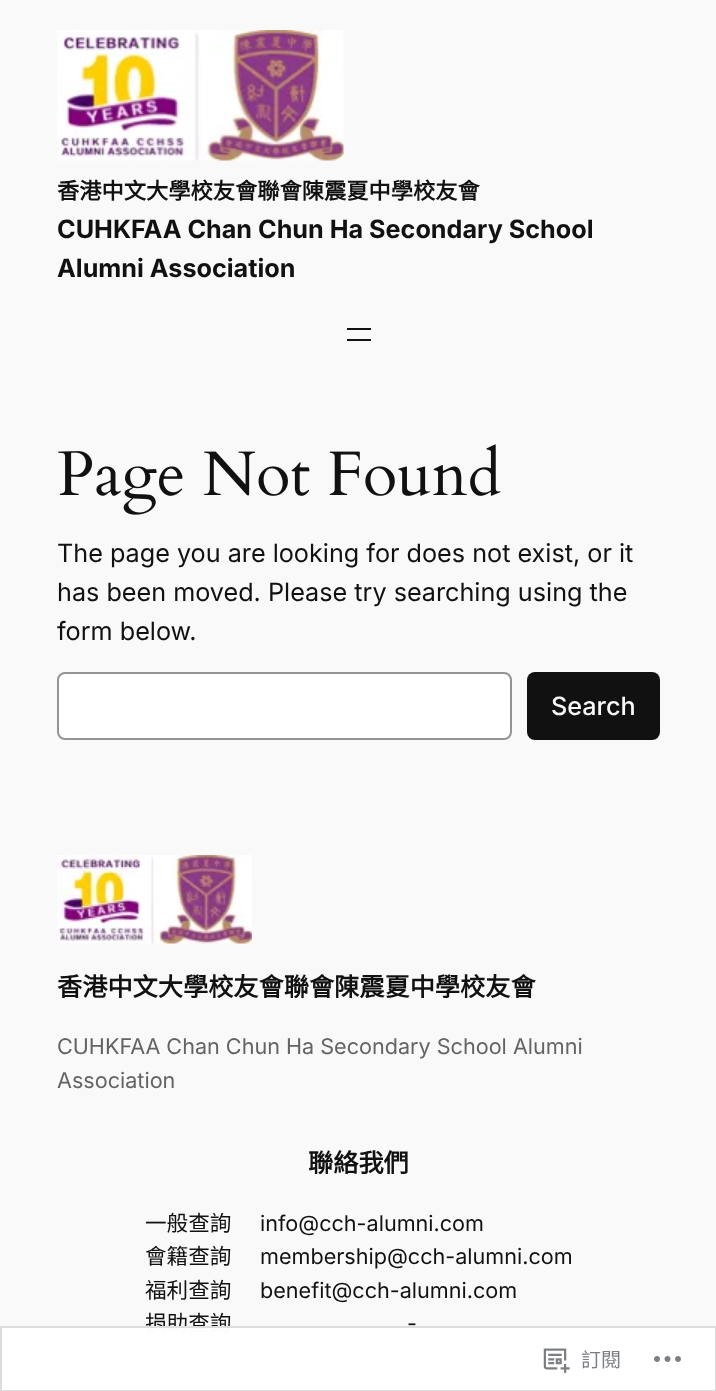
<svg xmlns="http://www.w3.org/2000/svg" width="716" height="1391">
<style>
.a{font:bold 22.25px Noto Sans CJK TC;fill:#111}
.b{font:bold 25.2px Inter;fill:#111}
.c{font:25.2px Inter;fill:#111}
.d{font:500 25.2px Inter;fill:#f9f9f9}
.e{font:bold 25.2px Noto Sans CJK TC;fill:#111}
.f{font:21.6px Inter;fill:#636363}
.g{font:21.6px Noto Sans CJK TC;fill:#111}
.h{font:21.6px Inter;fill:#111}
.i{font:20px Noto Sans CJK TC;fill:#7b7f84}
</style>
<rect width="100%" height="100%" fill="#f9f9f9"/>
<image href="1.png" x="57" y="30" width="287" height="131"/>
<path fill="#111" d="M347 328h24v2H347z"/>
<path fill="#111" d="M347 339h24v2H347z"/>
<image href="2.png" x="58" y="444" width="443" height="71"/>
<rect fill="#fff" stroke="#949494" stroke-width="2" x="58" y="673" width="453" height="66" rx="7"/>
<rect fill="#111" x="527" y="672" width="133" height="68" rx="8"/>
<image href="3.png" x="57" y="855" width="195" height="89"/>
<text class="a" x="57" y="199">香港中文大學校友會聯會陳震夏中學校友會</text>
<text class="b" x="57" y="238">CUHKFAA Chan Chun Ha Secondary School</text>
<text class="b" x="57" y="277">Alumni Association</text>
<text class="c" x="57" y="562">The page you are looking for does not exist, or it</text>
<text class="c" x="57" y="601">has been moved. Please try searching using the</text>
<text class="c" x="57" y="640">form below.</text>
<text class="d" x="551" y="715">Search</text>
<text class="e" x="57" y="996">香港中文大學校友會聯會陳震夏中學校友會</text>
<text class="f" x="57" y="1054">CUHKFAA Chan Chun Ha Secondary School Alumni</text>
<text class="f" x="57" y="1088">Association</text>
<text class="e" x="308" y="1172">聯絡我們</text>
<text class="g" x="145" y="1231">一般查詢</text>
<text class="g" x="145" y="1264">會籍查詢</text>
<text class="g" x="145" y="1298">福利查詢</text>
<text class="g" x="145" y="1331">捐助查詢</text>
<text class="h" x="260" y="1231">info@cch-alumni.com</text>
<text class="h" x="260" y="1264">membership@cch-alumni.com</text>
<text class="h" x="260" y="1298">benefit@cch-alumni.com</text>
<text class="h" x="407" y="1331">-</text>
<path fill="#fffffffa" d="M0 1326h716v65H0z"/>
<path fill="none" stroke="#dcdcdefa" stroke-width="2" d="M1 1327h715v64H1z"/>
<image href="4.png" x="543" y="1348" width="27" height="25"/>
<text class="i" x="581" y="1367">訂閱</text>
<image href="5.png" x="654" y="1356" width="27" height="6"/>
</svg>
